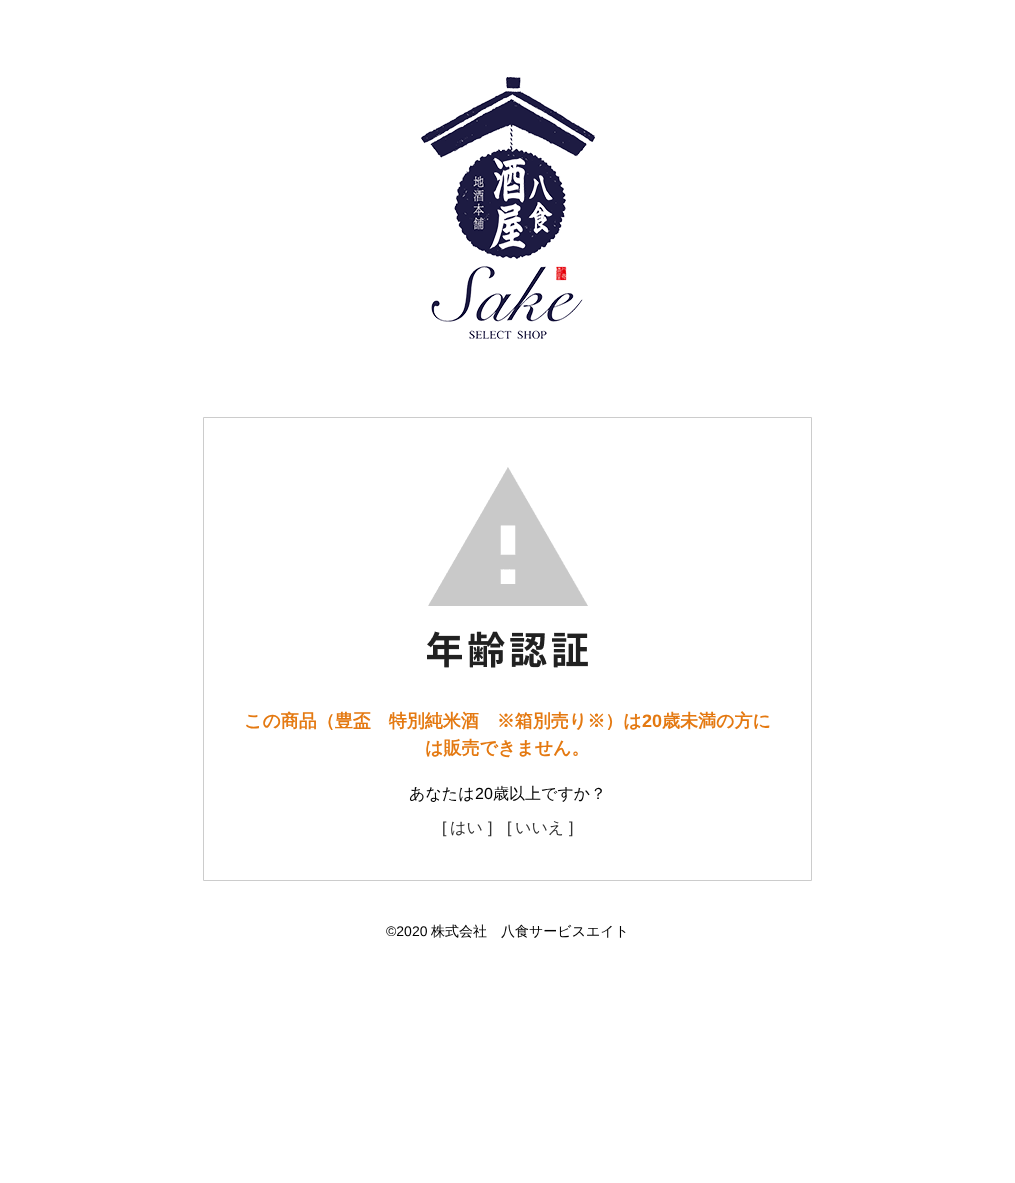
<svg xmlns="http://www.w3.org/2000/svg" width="1015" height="1183">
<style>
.a{font:bold 18px WenQuanYi Zen Hei;fill:#e47911}
.b{font:bold 18px Liberation Sans;fill:#e47911}
.c{font:500 16px WenQuanYi Zen Hei;fill:#000}
.d{font:16px Liberation Sans;fill:#000}
.e{font:16px Liberation Sans;fill:#333}
.f{font:500 16px WenQuanYi Zen Hei;fill:#333}
.g{font:14px Liberation Sans;fill:#000}
.h{font:500 14px WenQuanYi Zen Hei;fill:#000}
</style>
<rect width="100%" height="100%" fill="#fff"/>
<image href="1.png" x="421" y="77" width="174" height="262"/>
<path fill="none" stroke="#ccc" d="M203.5 417.5h608v463H203.5z"/>
<image href="2.png" x="427" y="467" width="161" height="201"/>
<text class="a" x="244" y="727">この商品（豊盃　特別純米酒　※箱別売り※）は</text>
<text class="b" x="642" y="727">20</text>
<text class="a" x="662" y="727">歳未満の方に</text>
<text class="a" x="425" y="754">は販売できません。</text>
<text class="c" x="409" y="799">あなたは</text>
<text class="d" x="475" y="799">20</text>
<text class="c" x="493" y="799">歳以上ですか？</text>
<text class="e" x="442" y="833">[</text>
<text class="f" x="450" y="833">はい</text>
<text class="e" x="488" y="833">]</text>
<text class="e" x="507" y="833">[</text>
<text class="f" x="515" y="833">いいえ</text>
<text class="e" x="569" y="833">]</text>
<text class="g" x="386" y="936">©2020</text>
<text class="h" x="431" y="936">株式会社　八食サービスエイト</text>
</svg>
